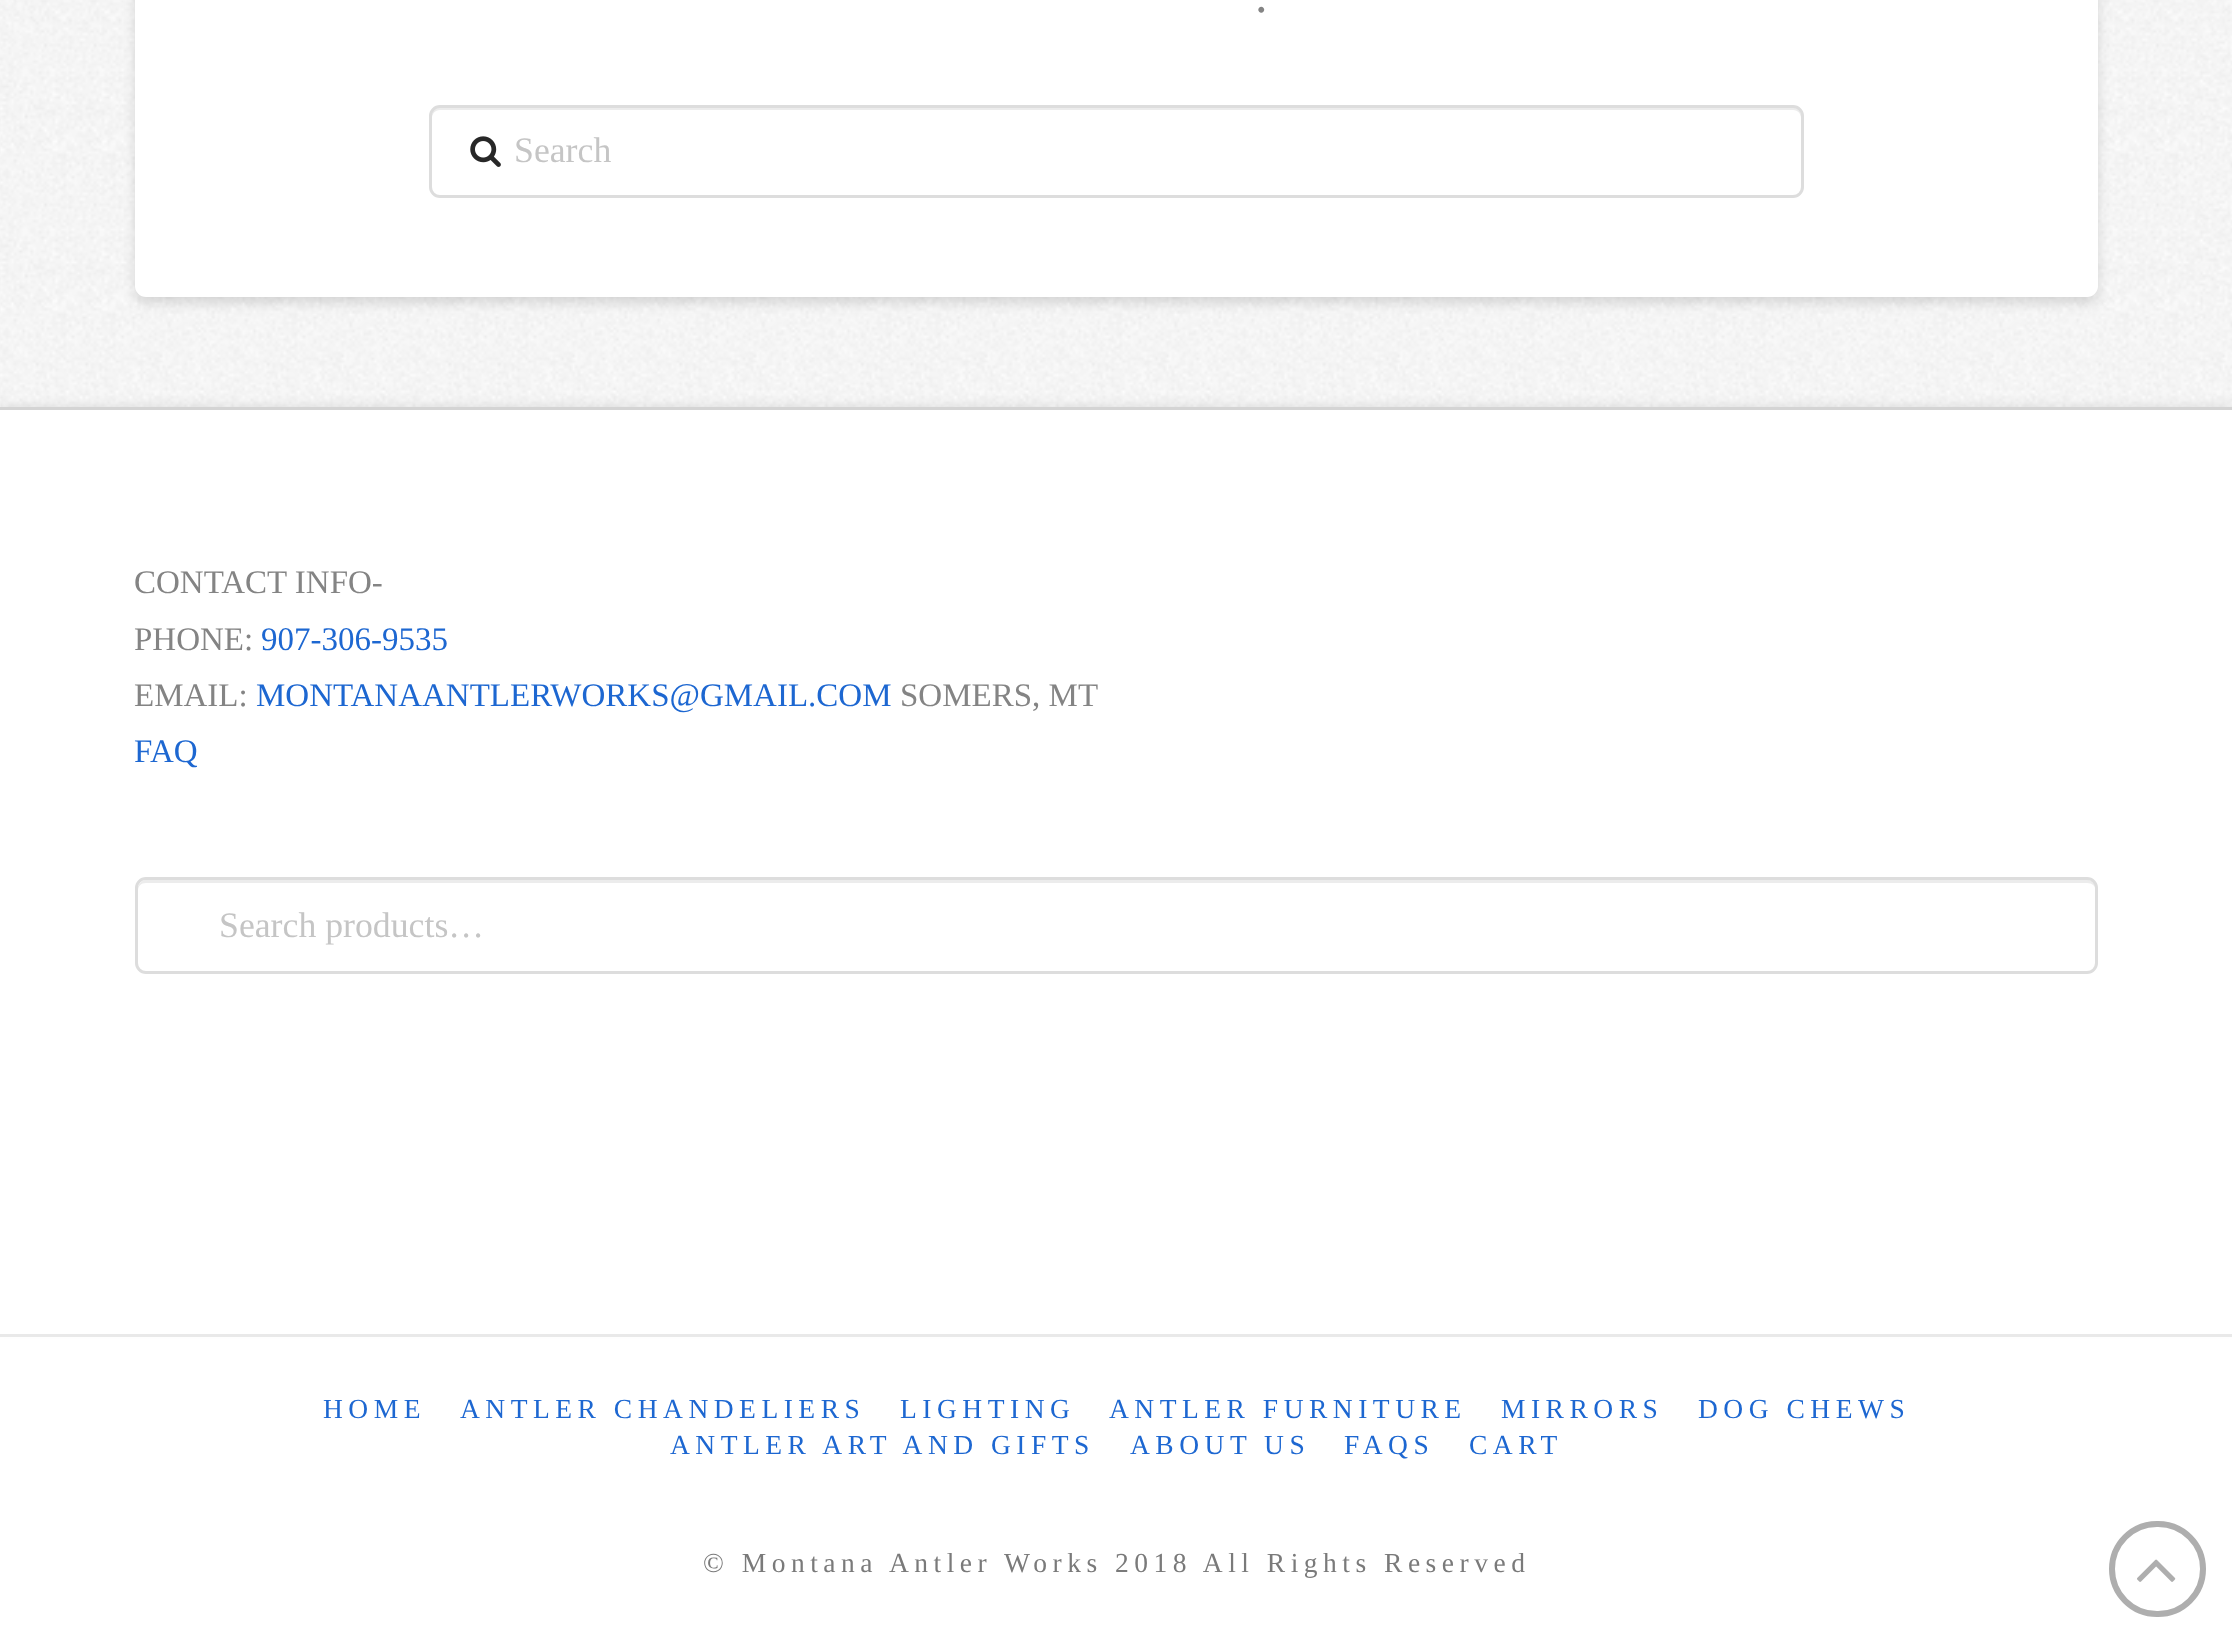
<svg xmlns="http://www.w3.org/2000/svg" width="2232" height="1644">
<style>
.a{font:50px Liberation Serif;fill:#848484}
.b{font:35.75px Liberation Serif;fill:#c5c5c5}
.c{font:33px Liberation Serif;fill:#848484}
.d{font:33px Liberation Serif;fill:#1d67d1}
.e{font:27.5px Liberation Serif;letter-spacing:5.5px;fill:#1d67d1}
.f{font:27.5px Liberation Serif;letter-spacing:5.5px;fill:#7a7a7a}
</style>
<rect width="100%" height="100%" fill="#fff"/>
<image href="1.png" x="0" y="0" width="2232" height="407"/>
<rect fill="#00000021" filter="blur(6px)" x="135" y="-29" width="1963" height="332" rx="11"/>
<rect fill="#fff" x="135" y="-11" width="1963" height="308" rx="11"/>
<path fill="#ececec" d="M440 110h1353c5 0 8 4 8 8v-3c0-4-4-8-8-8h-1353c-4 0-8 4-8 8v3c0-4 3-8 8-8z"/>
<rect fill="none" stroke="#ddd" stroke-width="3" x="430.5" y="106.5" width="1372" height="90" rx="9.5"/>
<image href="2.png" x="470" y="136" width="31" height="31"/>
<path fill="#00000012" filter="blur(4px)" d="M0 404h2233v927H0z"/>
<path fill="#fff" d="M0 410h2232v924H0z"/>
<path fill="#d4d4d4" d="M0 407h2232v3H0z"/>
<path fill="#ececec" d="M146 883h1941c5 0 9 3 9 8v-3c0-4-4-8-8-8h-1942c-4 0-8 4-8 8v3c0-5 3-8 8-8z"/>
<rect fill="none" stroke="#ddd" stroke-width="3" x="136.5" y="878.5" width="1960" height="94" rx="9.5"/>
<path fill="#e9e9e9" d="M0 1334h2232v3H0z"/>
<rect fill="none" stroke="#aeaeae" stroke-width="6" x="2112" y="1524" width="91" height="90" rx="45"/>
<image href="3.png" x="2137" y="1559" width="39" height="23"/>
<text class="a" x="1255" y="12">.</text>
<text class="b" x="514" y="162">Search</text>
<text class="c" x="134" y="593">CONTACT INFO-</text>
<text class="c" x="134" y="650">PHONE:</text>
<text class="d" x="261" y="650">907-306-9535</text>
<text class="c" x="134" y="706">EMAIL:</text>
<text class="d" x="256" y="706">MONTANAANTLERWORKS@GMAIL.COM</text>
<text class="c" x="900" y="706">SOMERS, MT</text>
<text class="d" x="134" y="762">FAQ</text>
<text class="b" x="219" y="937">Search products…</text>
<text class="e" x="323" y="1418">HOME</text>
<text class="e" x="460" y="1418">ANTLER CHANDELIERS</text>
<text class="e" x="900" y="1418">LIGHTING</text>
<text class="e" x="1109" y="1418">ANTLER FURNITURE</text>
<text class="e" x="1501" y="1418">MIRRORS</text>
<text class="e" x="1698" y="1418">DOG CHEWS</text>
<text class="e" x="670" y="1454">ANTLER ART AND GIFTS</text>
<text class="e" x="1130" y="1454">ABOUT US</text>
<text class="e" x="1344" y="1454">FAQS</text>
<text class="e" x="1469" y="1454">CART</text>
<text class="f" x="703" y="1572">© Montana Antler Works 2018 All Rights Reserved</text>
</svg>
